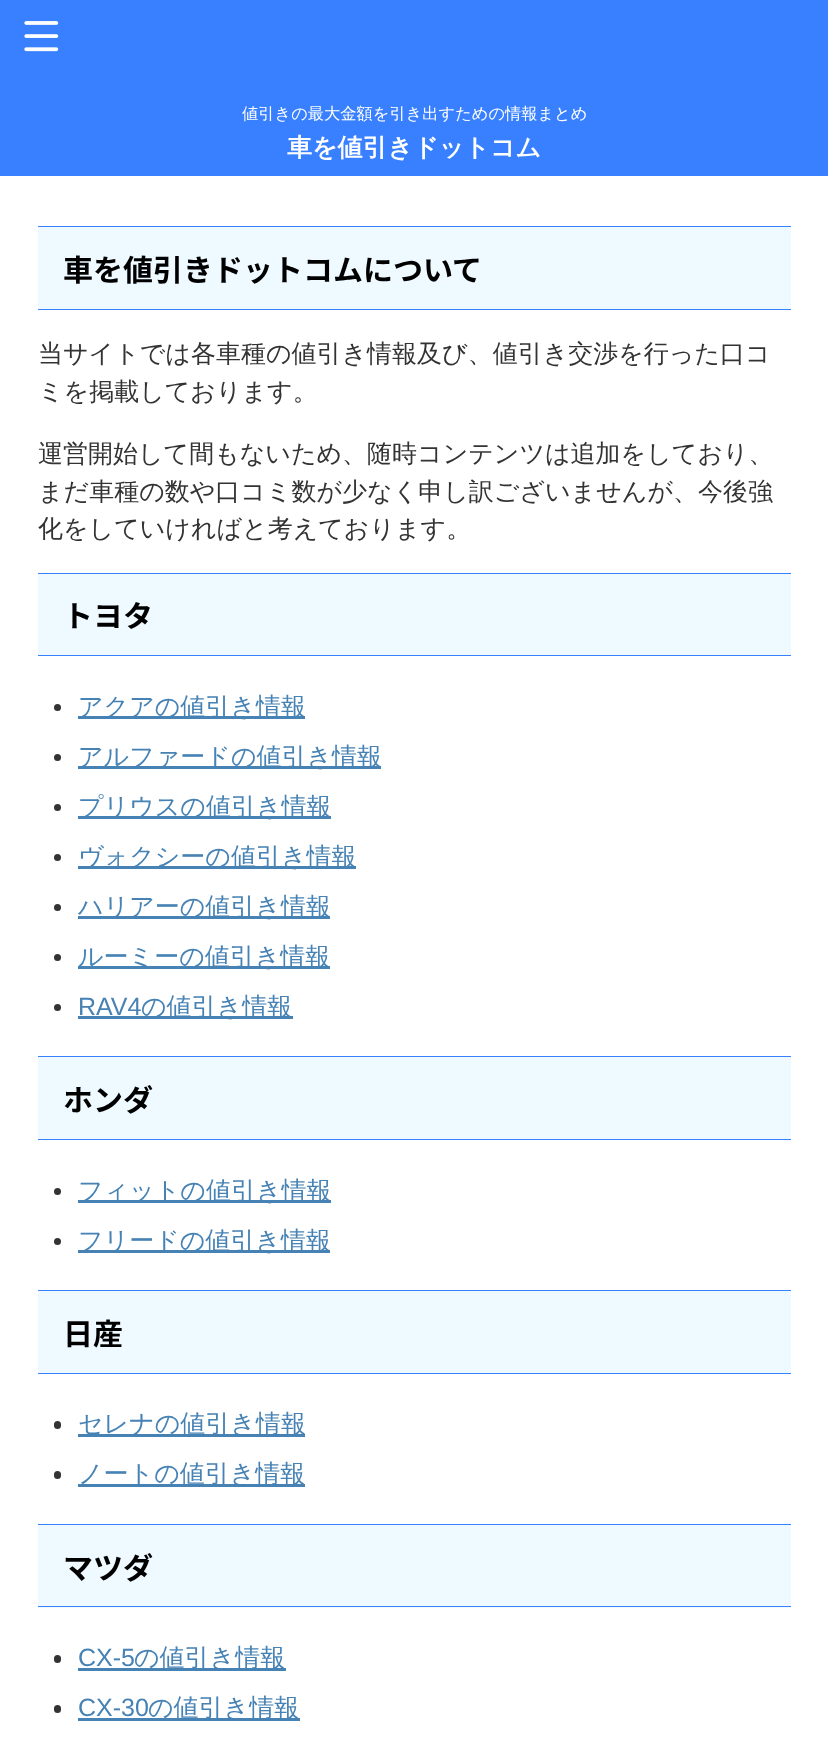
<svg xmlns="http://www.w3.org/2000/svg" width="828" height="1752">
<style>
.a{font:500 16.25px WenQuanYi Zen Hei;fill:#fff}
.b{font:bold 25px WenQuanYi Zen Hei;fill:#fff}
.c{font:bold 30px Noto Sans JP;fill:#000}
.d{font:500 25px WenQuanYi Zen Hei;fill:#333}
.e{font:500 25px WenQuanYi Zen Hei;fill:#4682b4}
.f{font:25px Liberation Sans;fill:#4682b4}
</style>
<rect width="100%" height="100%" fill="#3880ff"/>
<image href="1.png" x="24" y="21" width="35" height="31"/>
<path fill="#fff" d="M0 176h828v1576H0z"/>
<path fill="#eefaff" d="M38 227h753v82H38z"/>
<path fill="#3880ff" d="M38 226h753v1H38z"/>
<path fill="#3880ff" d="M38 309h753v1H38z"/>
<path fill="#eefaff" d="M38 574h753v81H38z"/>
<path fill="#3880ff" d="M38 573h753v1H38z"/>
<path fill="#3880ff" d="M38 655h753v1H38z"/>
<circle fill="#333" cx="57.5" cy="707.5" r="3.5"/>
<path fill="#4682b4" d="M78 716h227v3H78z"/>
<circle fill="#333" cx="57.5" cy="757.5" r="3.5"/>
<path fill="#4682b4" d="M78 766h303v3H78z"/>
<circle fill="#333" cx="57.5" cy="807.5" r="3.5"/>
<path fill="#4682b4" d="M78 816h253v3H78z"/>
<circle fill="#333" cx="57.5" cy="857.5" r="3.5"/>
<path fill="#4682b4" d="M78 866h278v3H78z"/>
<circle fill="#333" cx="57.5" cy="907.5" r="3.5"/>
<path fill="#4682b4" d="M78 916h252v3H78z"/>
<circle fill="#333" cx="57.5" cy="957.5" r="3.5"/>
<path fill="#4682b4" d="M78 966h252v3H78z"/>
<circle fill="#333" cx="57.5" cy="1007.5" r="3.5"/>
<path fill="#4682b4" d="M78 1016h215v3H78z"/>
<path fill="#eefaff" d="M38 1057h753v82H38z"/>
<path fill="#3880ff" d="M38 1056h753v1H38z"/>
<path fill="#3880ff" d="M38 1139h753v1H38z"/>
<circle fill="#333" cx="57.5" cy="1191.5" r="3.5"/>
<path fill="#4682b4" d="M78 1200h253v3H78z"/>
<circle fill="#333" cx="57.5" cy="1241.5" r="3.5"/>
<path fill="#4682b4" d="M78 1250h252v3H78z"/>
<path fill="#eefaff" d="M38 1291h753v82H38z"/>
<path fill="#3880ff" d="M38 1290h753v1H38z"/>
<path fill="#3880ff" d="M38 1373h753v1H38z"/>
<rect fill="#333" x="54" y="1421" width="7" height="8" rx="3.5"/>
<path fill="#4682b4" d="M78 1434h227v3H78z"/>
<rect fill="#333" x="54" y="1471" width="7" height="8" rx="3.5"/>
<path fill="#4682b4" d="M78 1484h227v3H78z"/>
<path fill="#eefaff" d="M38 1525h753v83H38z"/>
<path fill="#3880ff" d="M38 1524h753v1H38z"/>
<path fill="#3880ff" d="M38 1606h753v1H38z"/>
<rect fill="#333" x="54" y="1655" width="7" height="8" rx="3.5"/>
<path fill="#4682b4" d="M78 1668h208v3H78z"/>
<rect fill="#333" x="54" y="1705" width="7" height="8" rx="3.5"/>
<path fill="#4682b4" d="M78 1718h222v3H78z"/>
<text class="a" x="242" y="119">値引きの最大金額を引き出すための情報まとめ</text>
<text class="b" x="287" y="156">車を値引きドットコム</text>
<text class="c" x="63" y="281">車を値引きドットコムについて</text>
<text class="d" x="38" y="362">当サイトでは各車種の値引き情報及び、値引き交渉を行った口コ</text>
<text class="d" x="38" y="400">ミを掲載しております。</text>
<text class="d" x="38" y="462">運営開始して間もないため、随時コンテンツは追加をしており、</text>
<text class="d" x="38" y="500">まだ車種の数や口コミ数が少なく申し訳ございませんが、今後強</text>
<text class="d" x="38" y="537">化をしていければと考えております。</text>
<text class="c" x="63" y="627">トヨタ</text>
<text class="e" x="78" y="715">アクアの値引き情報</text>
<text class="e" x="78" y="765">アルファードの値引き情報</text>
<text class="e" x="78" y="815">プリウスの値引き情報</text>
<text class="e" x="78" y="865">ヴォクシーの値引き情報</text>
<text class="e" x="78" y="915">ハリアーの値引き情報</text>
<text class="e" x="78" y="965">ルーミーの値引き情報</text>
<text class="f" x="78" y="1015">RAV4</text>
<text class="e" x="141" y="1015">の値引き情報</text>
<text class="c" x="63" y="1111">ホンダ</text>
<text class="e" x="78" y="1199">フィットの値引き情報</text>
<text class="e" x="78" y="1249">フリードの値引き情報</text>
<text class="c" x="63" y="1345">日産</text>
<text class="e" x="78" y="1432">セレナの値引き情報</text>
<text class="e" x="78" y="1482">ノートの値引き情報</text>
<text class="c" x="63" y="1579">マツダ</text>
<text class="f" x="78" y="1666">CX-5</text>
<text class="e" x="134" y="1666">の値引き情報</text>
<text class="f" x="78" y="1716">CX-30</text>
<text class="e" x="148" y="1716">の値引き情報</text>
</svg>
